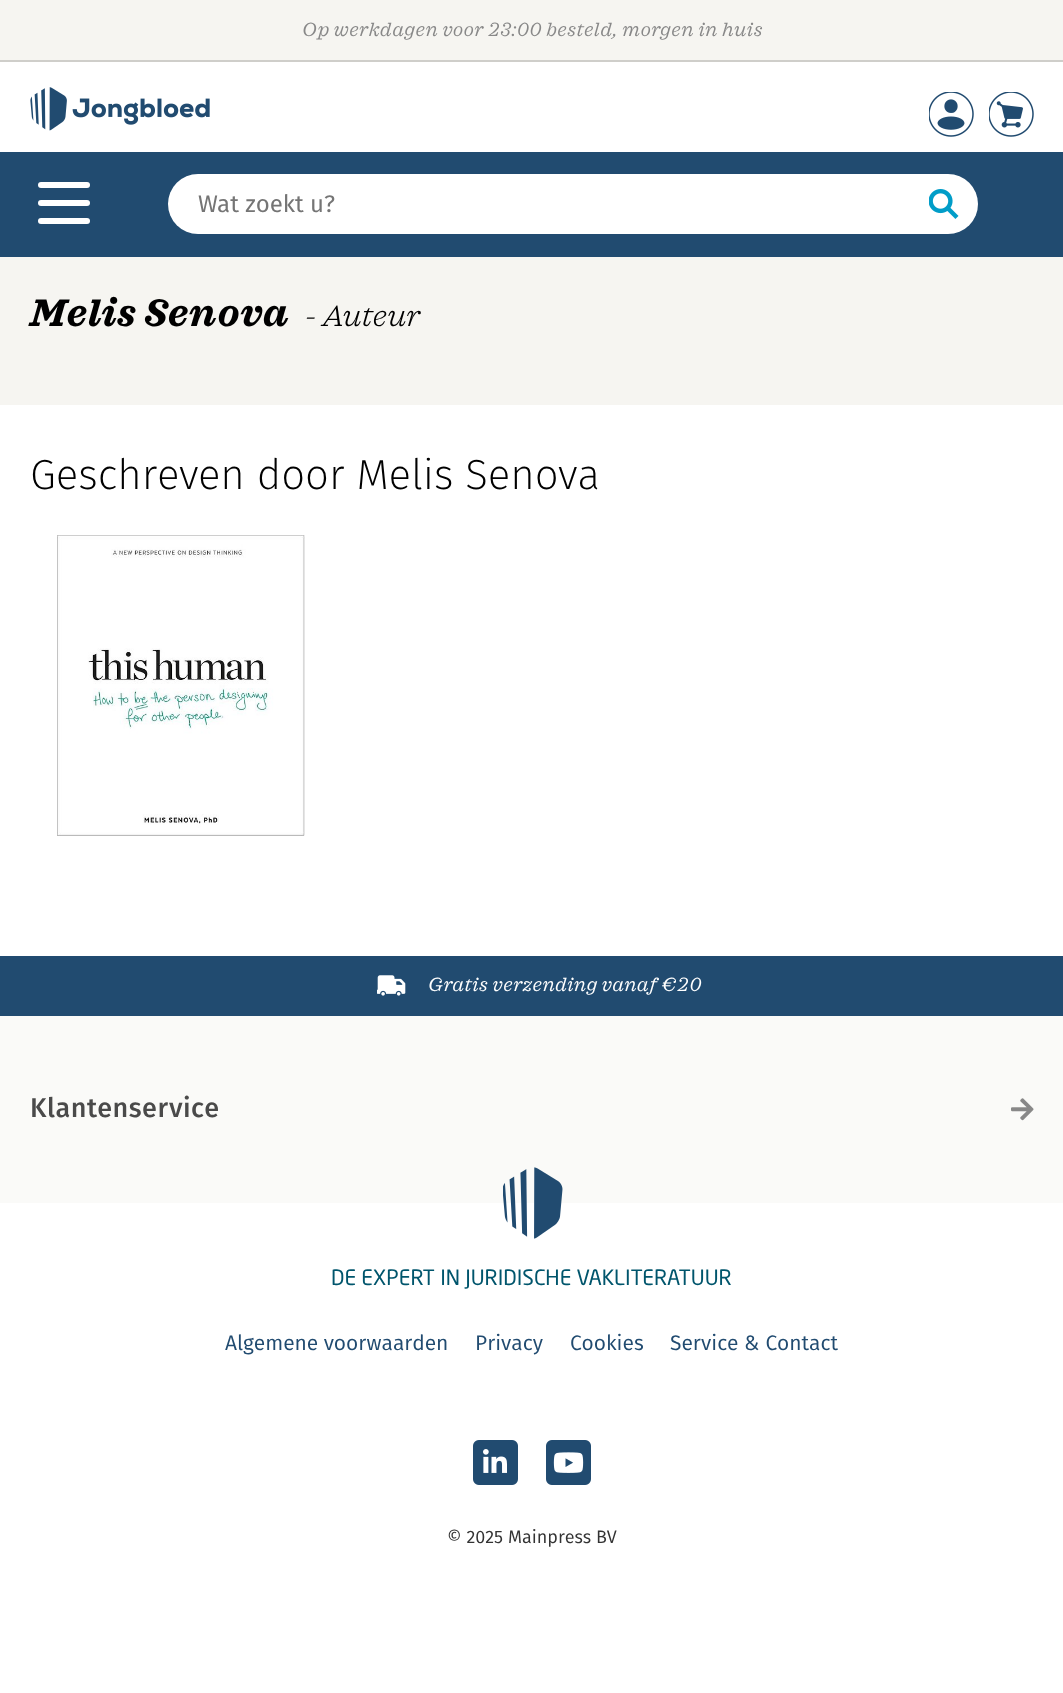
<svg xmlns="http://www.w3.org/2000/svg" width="1063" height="1693">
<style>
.a{font:italic 19.5px 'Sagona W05';letter-spacing:0.6px;fill:#888}
.b{font:24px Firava;fill:#757575}
.c{font:italic bold 39px 'Sagona W05';letter-spacing:0.75px;fill:#000}
.d{font:italic 300 30px 'Sagona W05';letter-spacing:0.5px;fill:#000}
.e{font:200 42px Firava;fill:#000}
.f{font:italic 19.5px 'Sagona W05';letter-spacing:0.6px;fill:#fff}
.g{font:500 27px Firava;letter-spacing:0.5px;fill:#4a4a4a}
.h{font:21px 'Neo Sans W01';fill:#00556c}
.i{font:21px 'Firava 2';fill:#214b70}
.j{font:18px 'Firava 2';fill:#333}
</style>
<rect width="100%" height="100%" fill="#fff"/>
<path fill="#f6f5f1" d="M0 0h1063v60H0z"/>
<path fill="#cfceca" d="M0 60h1063v2H0z"/>
<image href="1.png" x="30" y="87" width="180" height="44"/>
<image href="2.png" x="929" y="92" width="45" height="45"/>
<image href="3.png" x="989" y="92" width="45" height="45"/>
<path fill="#214b70" d="M0 152h1063v105H0z"/>
<rect fill="#fff" x="38" y="200" width="52" height="6" rx="3"/>
<rect fill="#fff" x="38" y="182" width="52" height="6" rx="3"/>
<rect fill="#fff" x="38" y="218" width="52" height="6" rx="3"/>
<rect fill="#fff" x="168" y="174" width="810" height="60" rx="30"/>
<image href="4.png" x="929" y="189" width="30" height="30"/>
<path fill="#f6f5f1" d="M0 257h1063v148H0z"/>
<image href="5.png" x="57" y="535" width="248" height="301"/>
<path fill="#214b70" d="M0 956h1063v60H0z"/>
<image href="6.png" x="377" y="975" width="29" height="21"/>
<path fill="#fafaf8" d="M0 1016h1063v187H0z"/>
<image href="7.png" x="1011" y="1098" width="23" height="23"/>
<image href="8.png" x="503" y="1167" width="60" height="72"/>
<image href="9.png" x="473" y="1440" width="45" height="45"/>
<image href="10.png" x="546" y="1440" width="45" height="45"/>
<text class="a" x="302" y="36">Op werkdagen voor 23:00 besteld, morgen in huis</text>
<text class="b" x="198" y="212">Wat zoekt u?</text>
<text class="c" x="30" y="326">Melis Senova</text>
<text class="d" x="305" y="326">- Auteur</text>
<text class="e" x="30" y="489">Geschreven door Melis Senova</text>
<text class="f" x="428" y="991">Gratis verzending vanaf €20</text>
<text class="g" x="30" y="1117">Klantenservice</text>
<text class="h" x="331" y="1285">DE EXPERT IN JURIDISCHE VAKLITERATUUR</text>
<text class="i" x="225" y="1350">Algemene voorwaarden</text>
<text class="i" x="475" y="1350">Privacy</text>
<text class="i" x="570" y="1350">Cookies</text>
<text class="i" x="670" y="1350">Service &amp; Contact</text>
<text class="j" x="447" y="1543">© 2025 Mainpress BV</text>
</svg>
